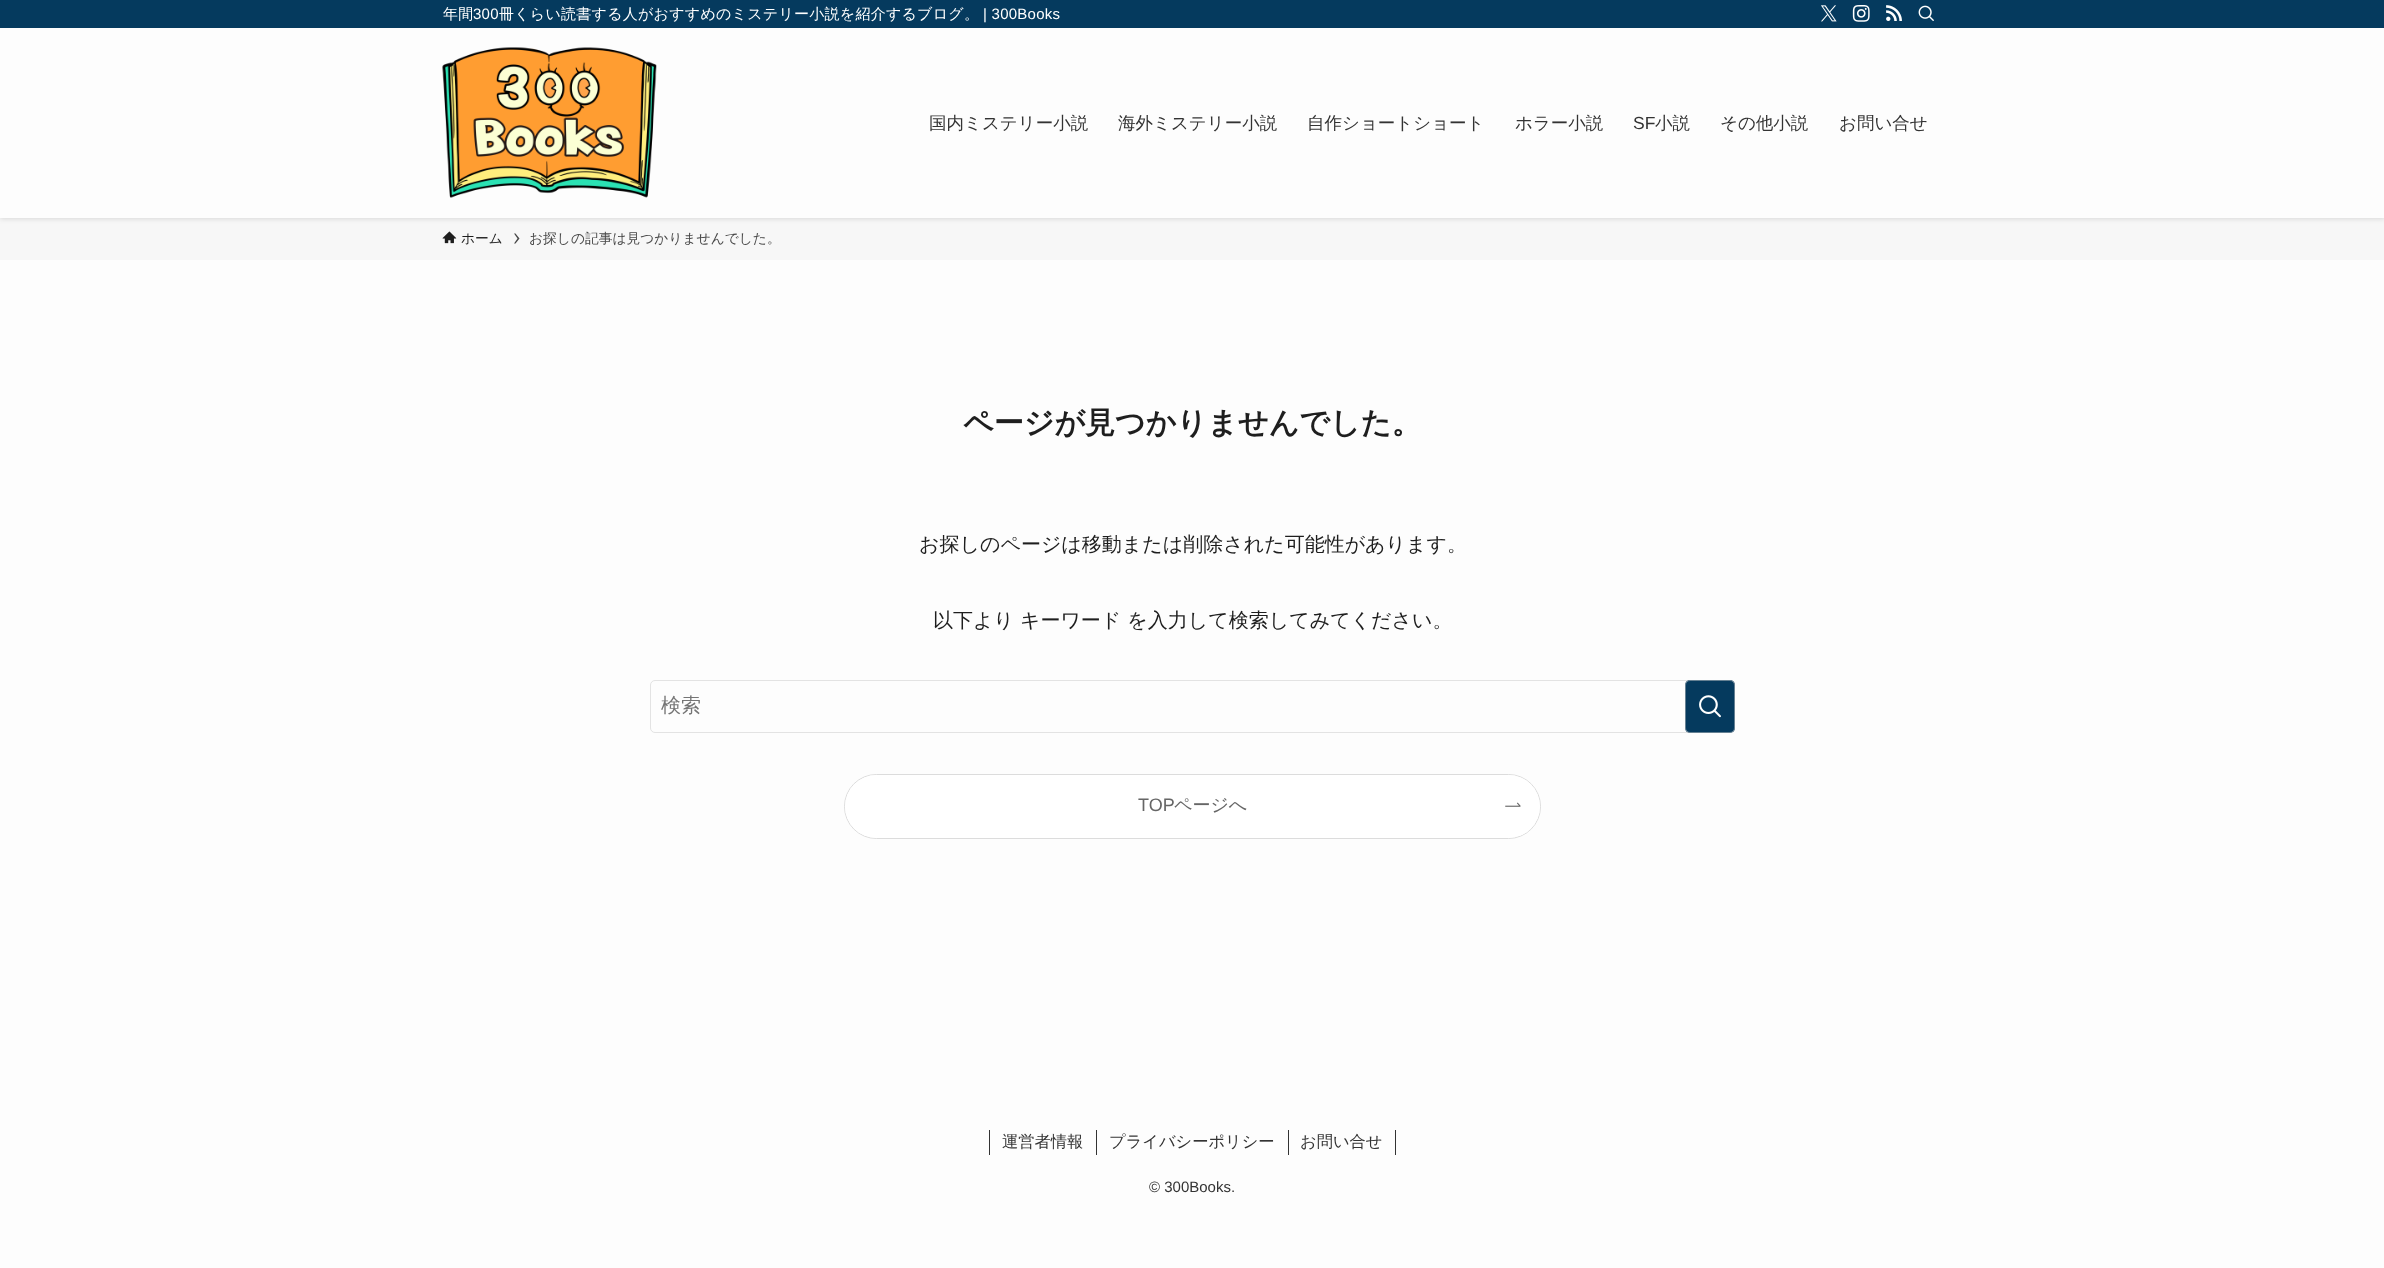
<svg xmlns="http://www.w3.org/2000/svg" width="2384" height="1268">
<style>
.a{font:500 15px WenQuanYi Zen Hei;letter-spacing:0.25px;fill:#fff}
.b{font:15px Liberation Sans;letter-spacing:0.25px;fill:#fff}
.c{font:500 17.5px WenQuanYi Zen Hei;fill:#333}
.d{font:17.5px Liberation Sans;fill:#333}
.e{font:500 13.75px WenQuanYi Zen Hei;fill:#1e1e1e}
.f{font:500 13.75px WenQuanYi Zen Hei;fill:#494949}
.g{font:bold 30px WenQuanYi Zen Hei;fill:#1e1e1e}
.h{font:500 20px WenQuanYi Zen Hei;fill:#1e1e1e}
.i{font:500 20px WenQuanYi Zen Hei;fill:#757575}
.j{font:18px Liberation Sans;fill:#666}
.k{font:500 18px WenQuanYi Zen Hei;fill:#666}
.l{font:500 16.25px WenQuanYi Zen Hei;fill:#333}
.m{font:15px Liberation Sans;fill:#333}
</style>
<rect width="100%" height="100%" fill="#fdfdfd"/>
<path fill="#f7f7f7" d="M0 218h2384v42H0z"/>
<path fill="#0000001f" filter="blur(2.5px)" d="M0 1h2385v218H0z"/>
<path fill="#fdfdfd" d="M0 28h2384v190H0z"/>
<path fill="#053a5e" d="M0 0h2384v28H0z"/>
<image href="1.png" x="1821" y="5" width="16" height="17"/>
<image href="2.png" x="1852" y="5" width="18" height="17"/>
<image href="3.png" x="1886" y="5" width="16" height="16"/>
<image href="4.png" x="1918" y="5" width="16" height="16"/>
<image href="5.png" x="442" y="47" width="215" height="151"/>
<image href="6.png" x="442" y="231" width="15" height="13"/>
<path fill="#494949" d="M515.5 233.5h-1.5l3.5 5l-3.5 5h1.5l4-5z"/>
<rect fill="none" stroke="#e3e3e3" x="650.5" y="680.5" width="1084" height="52" rx="4.5"/>
<rect fill="#053a5e" x="1685" y="680" width="50" height="53" rx="5"/>
<rect fill="none" stroke="#c7c7c780" x="1685.5" y="680.5" width="49" height="52" rx="4.5"/>
<image href="7.png" x="1699" y="695" width="22" height="23"/>
<rect fill="none" stroke="#dcdcdc" x="844.5" y="774.5" width="696" height="64" rx="32"/>
<rect fill="#fff" x="845" y="775" width="695" height="63" rx="31.5"/>
<image href="8.png" x="1505" y="802" width="16" height="5"/>
<path fill="#333" d="M1096 1130h1v25H1096z"/>
<path fill="#333" d="M989 1130h1v25H989z"/>
<path fill="#333" d="M1288 1130h1v25H1288z"/>
<path fill="#333" d="M1395 1130h1v25H1395z"/>
<text class="a" x="443" y="19">年間</text>
<text class="b" x="473" y="19">300</text>
<text class="a" x="499" y="19">冊くらい読書する人がおすすめのミステリー小説を紹介するブログ。</text>
<text class="b" x="983" y="19">| 300Books</text>
<text class="c" x="929" y="129">国内ミステリー小説</text>
<text class="c" x="1118" y="129">海外ミステリー小説</text>
<text class="c" x="1307" y="129">自作ショートショート</text>
<text class="c" x="1515" y="129">ホラー小説</text>
<text class="d" x="1633" y="129">SF</text>
<text class="c" x="1655" y="129">小説</text>
<text class="c" x="1720" y="129">その他小説</text>
<text class="c" x="1839" y="129">お問い合せ</text>
<text class="e" x="461" y="243">ホーム</text>
<text class="f" x="529" y="243">お探しの記事は見つかりませんでした。</text>
<text class="g" x="963" y="433">ページが見つかりませんでした。</text>
<text class="h" x="919" y="551">お探しのページは移動または削除された可能性があります。</text>
<text class="h" x="933" y="627">以下より キーワード を入力して検索してみてください。</text>
<text class="i" x="661" y="712">検索</text>
<text class="j" x="1138" y="811">TOP</text>
<text class="k" x="1174" y="811">ページへ</text>
<text class="l" x="1002" y="1147">運営者情報</text>
<text class="l" x="1109" y="1147">プライバシーポリシー</text>
<text class="l" x="1300" y="1147">お問い合せ</text>
<text class="m" x="1149" y="1192">© 300Books.</text>
</svg>
